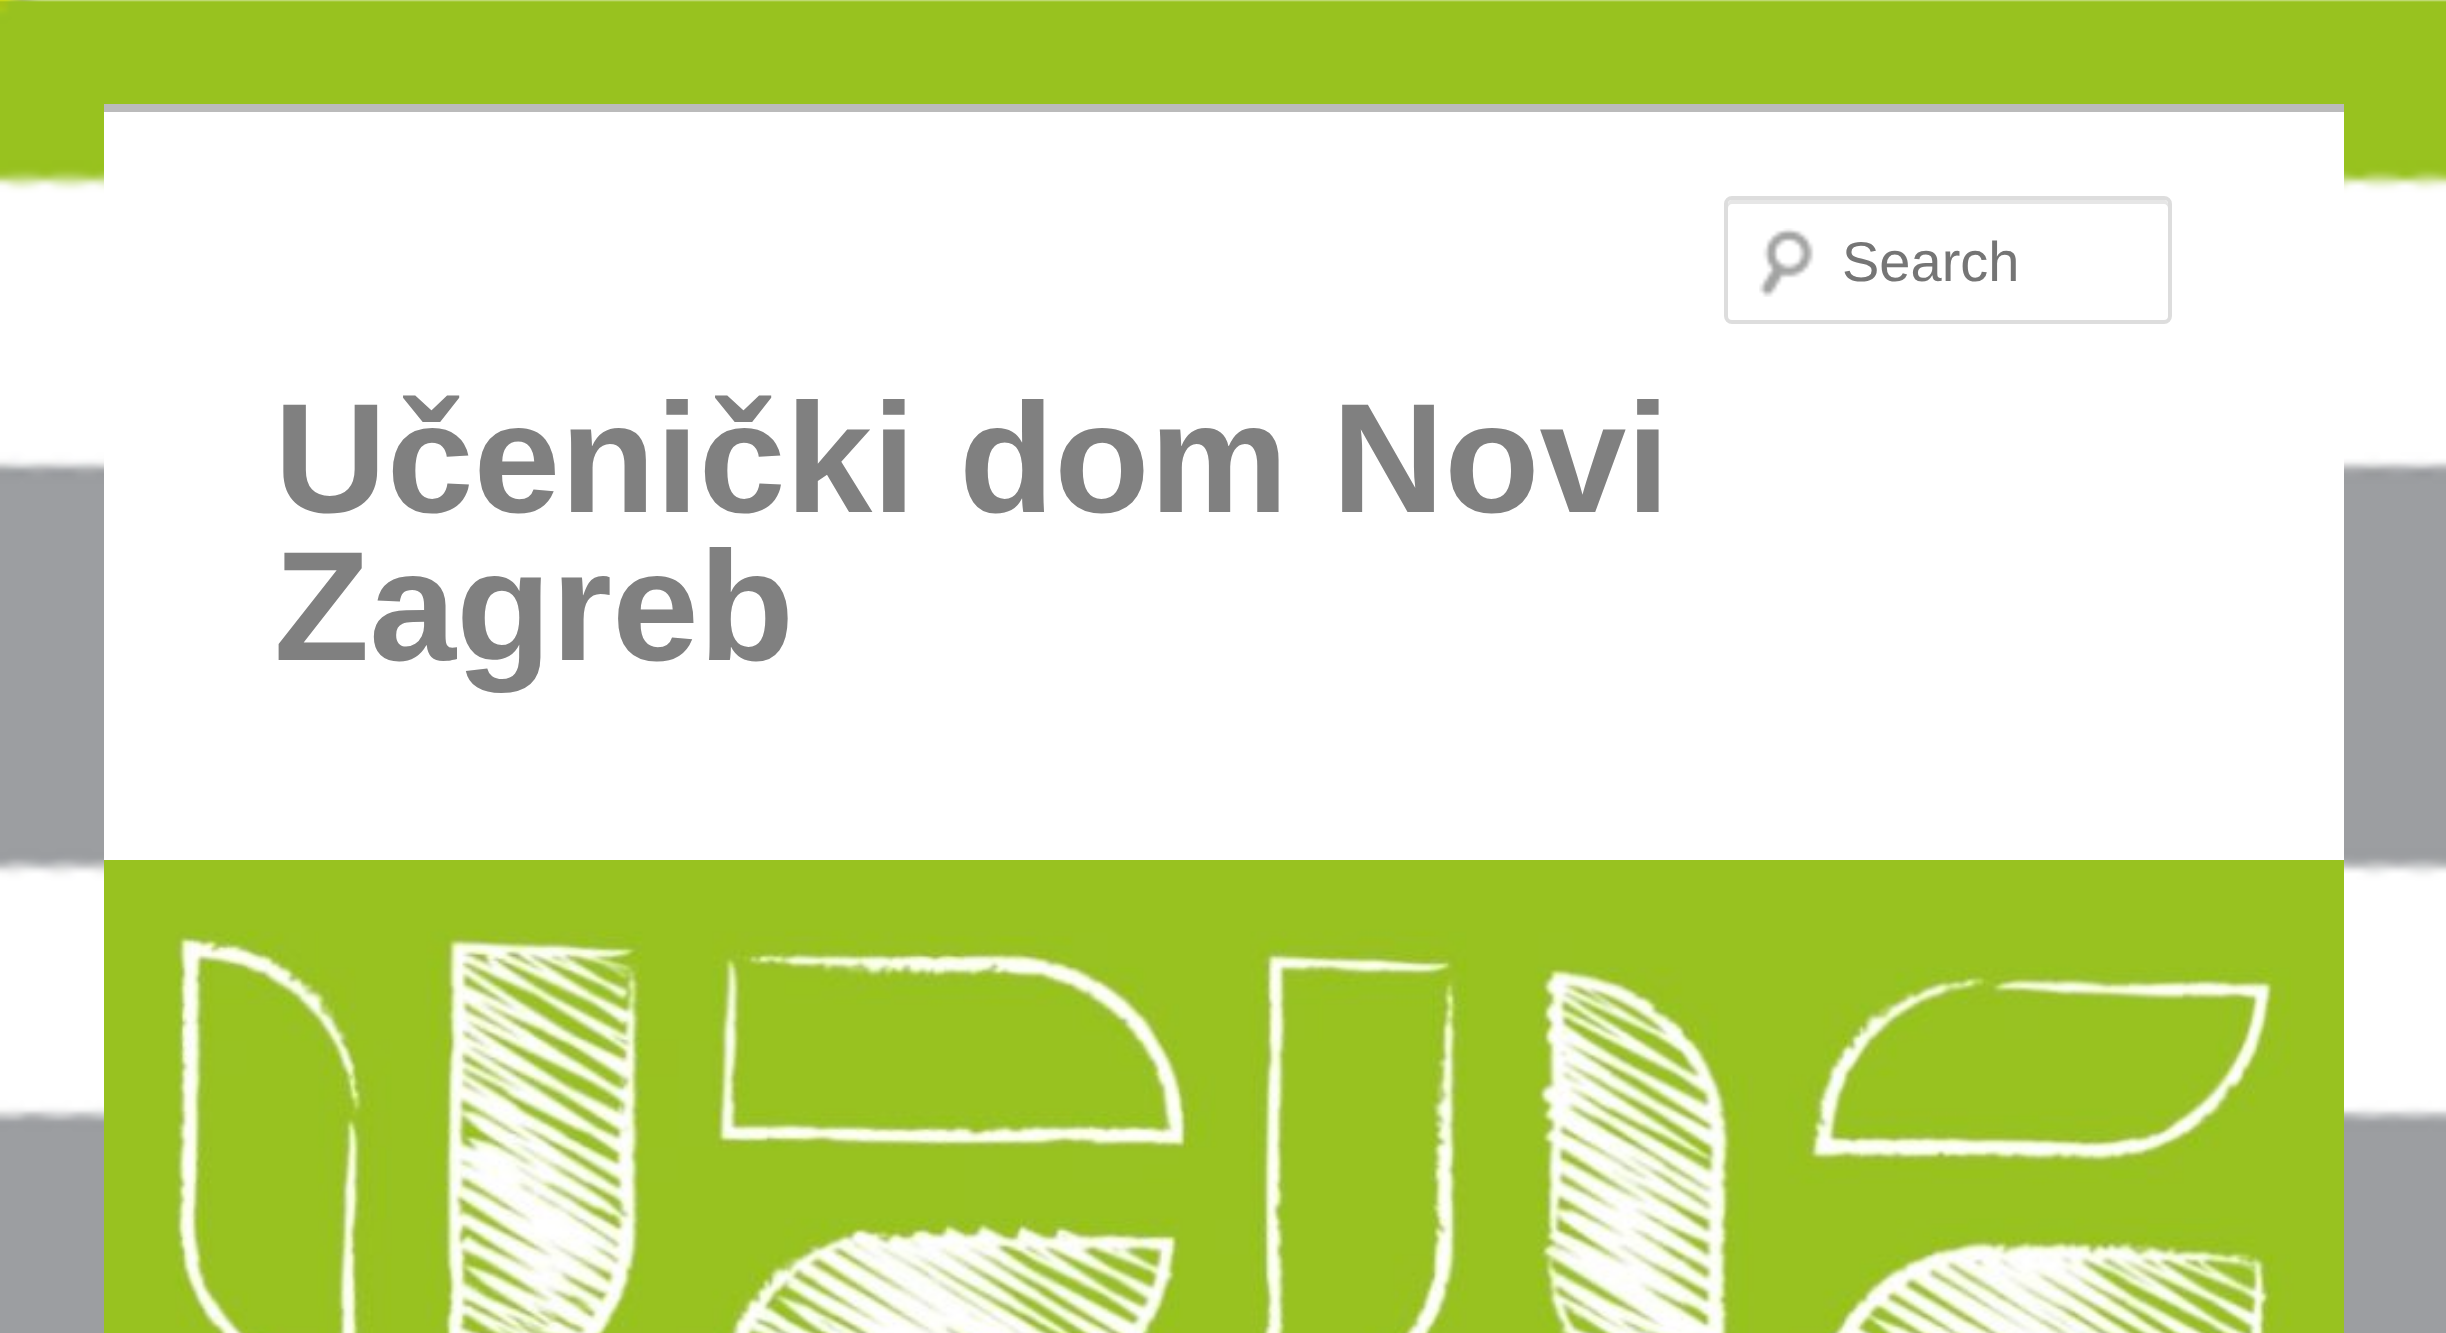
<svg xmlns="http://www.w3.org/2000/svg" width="2446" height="1333">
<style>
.a{font:56px Liberation Sans;fill:#757575}
.b{font:bold 156px Liberation Sans;fill:#808080}
</style>
<rect width="100%" height="100%" fill="#fff"/>
<image href="1.png" x="0" y="0" width="2446" height="1333"/>
<path fill="#fff" d="M104 112h2240v748H104z"/>
<path fill="#bbb" d="M104 104h2240v8H104z"/>
<image href="2.png" x="1759" y="228" width="55" height="69"/>
<path fill="#e6e6e6" d="M1732 204h432c2 0 4 2 4 4v-4c0-2-2-4-4-4h-432c-2 0-4 2-4 4v4c0-2 2-4 4-4z"/>
<rect fill="none" stroke="#ddd" stroke-width="4" x="1726" y="198" width="444" height="124" rx="6"/>
<image href="3.png" x="104" y="860" width="2240" height="473"/>
<text class="a" x="1842" y="281">Search</text>
<text class="b" x="274" y="512">Učenički dom Novi</text>
<text class="b" x="274" y="660">Zagreb</text>
</svg>
